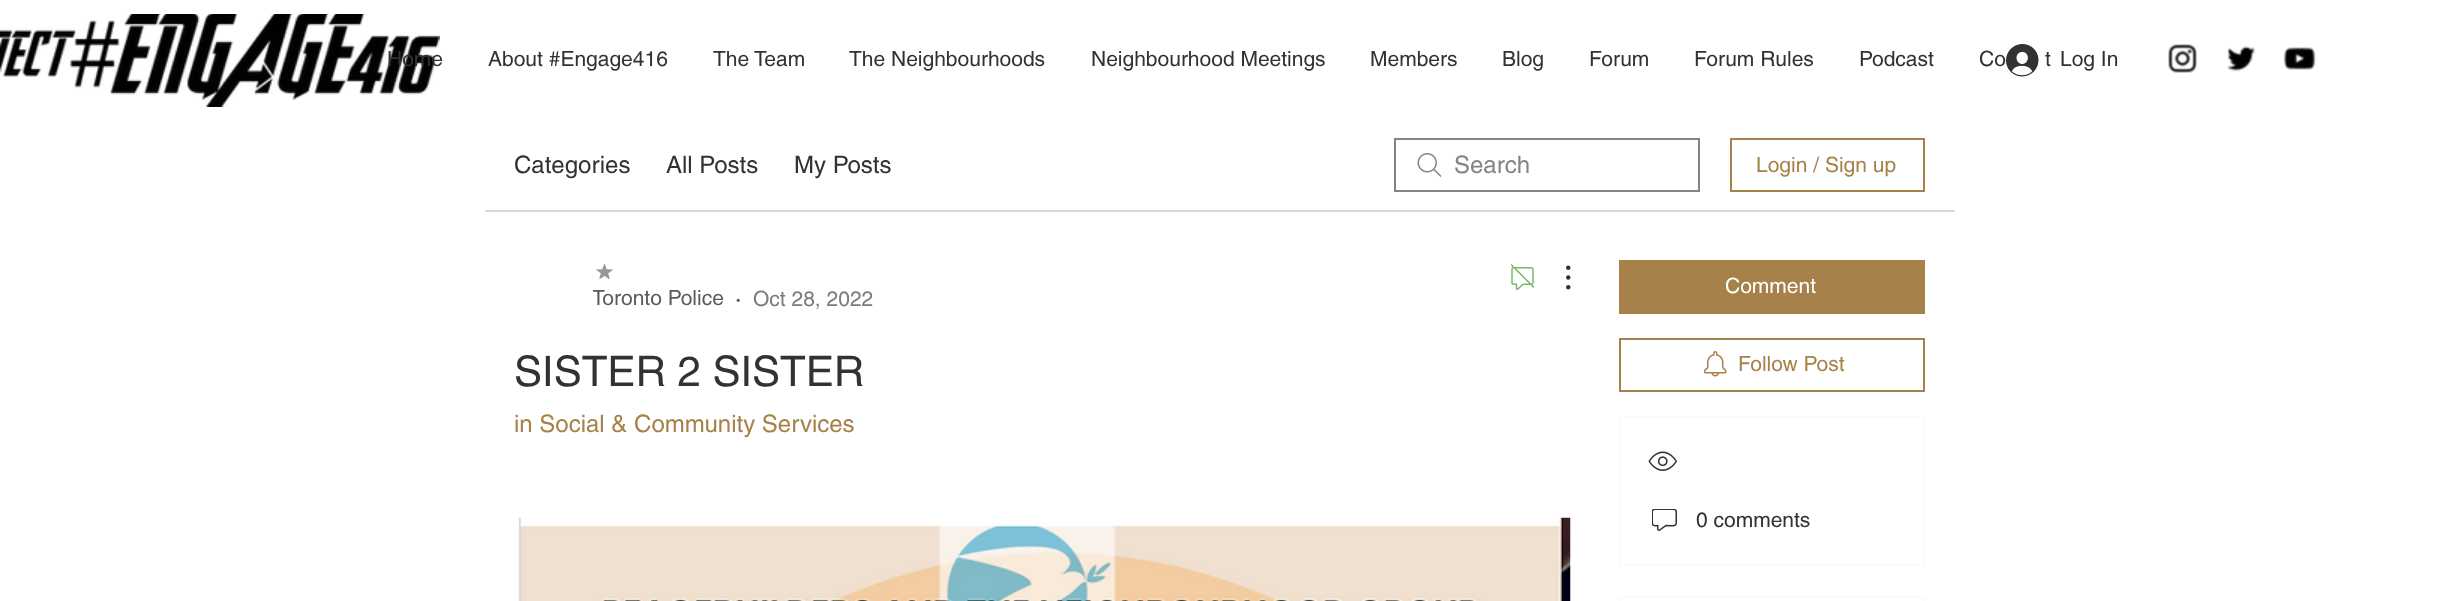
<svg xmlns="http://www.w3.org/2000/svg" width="2437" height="601">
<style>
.a{font:21px helvetica;fill:#323232}
.b{font:24px helvetica;fill:#323232}
.c{font:24px helvetica;fill:#848484}
.d{font:21px helvetica;fill:#a6824a}
.e{font:21px helvetica;fill:#5b5b5b}
.f{font:bold 21px helvetica;fill:#5b5b5b}
.g{font:21px helvetica;fill:#7c7c7c}
.h{font:42px helvetica;fill:#323232}
.i{font:24px helvetica;fill:#a6824a}
.j{font:21px helvetica;fill:#fff}
</style>
<defs>
<clipPath id="clip1"><path d="M593 285h130v24H593z"/></clipPath>
</defs>
<rect width="100%" height="100%" fill="#fff"/>
<image href="1.png" x="0" y="14" width="440" height="93"/>
<image href="2.png" x="2006" y="44" width="33" height="33"/>
<image href="3.png" x="2168" y="44" width="29" height="29"/>
<image href="4.png" x="2227" y="46" width="29" height="26"/>
<image href="5.png" x="2283" y="47" width="33" height="23"/>
<path fill="#d6d6d6" d="M485 210h1470v2H485z"/>
<image href="6.png" x="1417" y="153" width="25" height="24"/>
<path fill="none" stroke="#848484" stroke-width="2" d="M1395 139h304v52H1395z"/>
<path fill="none" stroke="#a6824a" stroke-width="2" d="M1731 139h193v52H1731z"/>
<image href="7.png" x="1511" y="264" width="24" height="26"/>
<image href="8.png" x="1566" y="265" width="5" height="25"/>
<image href="9.png" x="596" y="264" width="17" height="15"/>
<image href="10.png" x="518" y="517" width="1053" height="84"/>
<path fill="#a6824a" d="M1619 260h306v54H1619z"/>
<path fill="none" stroke="#a6824a" stroke-width="2" d="M1620 339h304v52H1620z"/>
<image href="11.png" x="1704" y="351" width="23" height="26"/>
<path fill="none" stroke="#fafafa" stroke-width="2" d="M1620 417h304v148H1620z"/>
<image href="12.png" x="1648" y="451" width="29" height="20"/>
<image href="13.png" x="1652" y="509" width="25" height="22"/>
<path fill="none" stroke="#fafafa" stroke-width="2" d="M1620 597h304v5H1620z"/>
<text class="a" x="387" y="66">Home</text>
<text class="a" x="488" y="66">About #Engage416</text>
<text class="a" x="713" y="66">The Team</text>
<text class="a" x="849" y="66">The Neighbourhoods</text>
<text class="a" x="1091" y="66">Neighbourhood Meetings</text>
<text class="a" x="1370" y="66">Members</text>
<text class="a" x="1502" y="66">Blog</text>
<text class="a" x="1589" y="66">Forum</text>
<text class="a" x="1694" y="66">Forum Rules</text>
<text class="a" x="1859" y="66">Podcast</text>
<text class="a" x="1979" y="66">Co</text>
<text class="a" x="2045" y="66">t</text>
<text class="a" x="2060" y="66">Log In</text>
<text class="b" x="514" y="173">Categories</text>
<text class="b" x="666" y="173">All Posts</text>
<text class="b" x="794" y="173">My Posts</text>
<text class="c" x="1454" y="173">Search</text>
<text class="d" x="1756" y="172">Login / Sign up</text>
<g clip-path="url(#clip1)">
<text class="e" x="592" y="305">Toronto Police</text>
</g>
<text class="f" x="735" y="306">·</text>
<text class="g" x="753" y="306">Oct 28, 2022</text>
<text class="h" x="514" y="386">SISTER 2 SISTER</text>
<text class="i" x="514" y="432">in Social &amp; Community Services</text>
<text class="j" x="1725" y="293">Comment</text>
<text class="d" x="1738" y="371">Follow Post</text>
<text class="a" x="1696" y="527">0 comments</text>
</svg>
